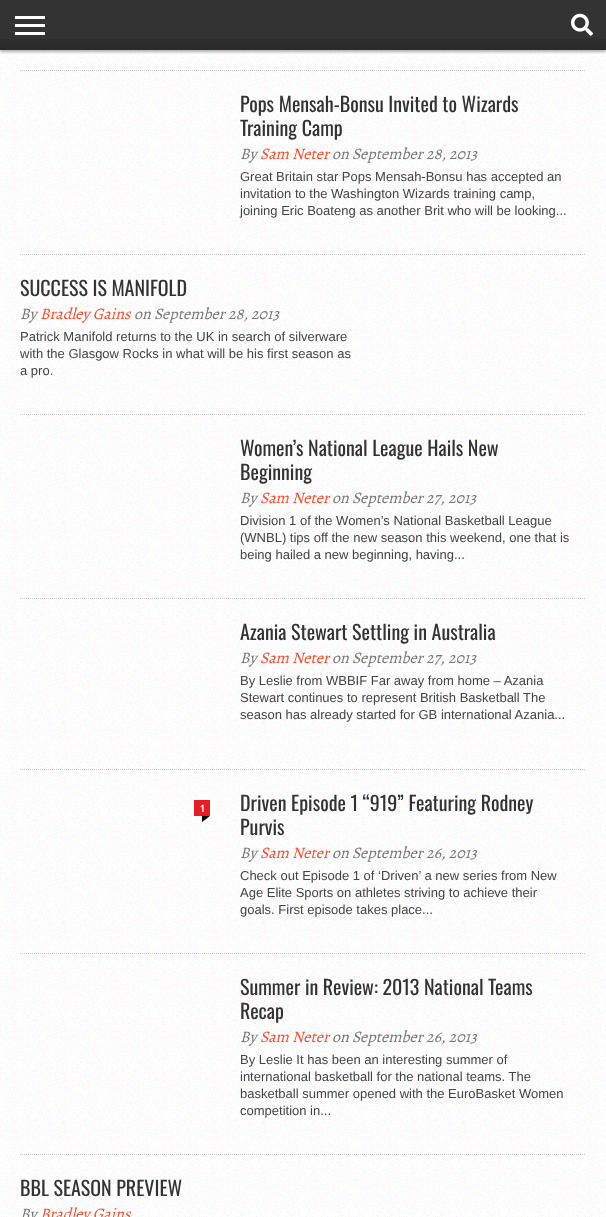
<svg xmlns="http://www.w3.org/2000/svg" width="606" height="1217">
<style>
.a{font:20px Oswald;fill:#333}
.b{font:italic 16px Alegreya;fill:#777}
.c{font:italic 16px Alegreya;fill:#fa4b2a}
.d{font:13px Liberation Sans;fill:#444}
.e{font:bold 10px Open Sans Condensed;fill:#fff}
</style>
<rect width="100%" height="100%" fill="#fff"/>
<image href="3.png" x="0" y="50" width="606" height="1167"/>
<path fill="#0000004d" filter="blur(1.5px)" d="M0 2h606v50H0z"/>
<path fill="#333" d="M0 0h606v50H0z"/>
<image href="1.png" x="0" y="39" width="606" height="11"/>
<path fill="#fff" d="M15 16h30v3H15z"/>
<path fill="#fff" d="M15 24h30v3H15z"/>
<path fill="#fff" d="M15 32h30v3H15z"/>
<image href="2.png" x="571" y="13" width="22" height="23"/>
<path fill="none" stroke="#ccc" stroke-dasharray="1 1" d="M20 70.5h566"/>
<path fill="none" stroke="#ccc" stroke-dasharray="1 1" d="M20 254.5h566"/>
<path fill="none" stroke="#ccc" stroke-dasharray="1 1" d="M20 414.5h566"/>
<path fill="none" stroke="#ccc" stroke-dasharray="1 1" d="M20 598.5h566"/>
<path fill="none" stroke="#ccc" stroke-dasharray="1 1" d="M20 769.5h566"/>
<path fill="none" stroke="#ccc" stroke-dasharray="1 1" d="M20 953.5h566"/>
<image href="4.png" x="202" y="816" width="8" height="6"/>
<path fill="#e91b23" d="M194 800h16v16H194z"/>
<path fill="none" stroke="#ccc" stroke-dasharray="1 1" d="M20 1154.5h566"/>
<text class="a" x="240" y="112">Pops Mensah-Bonsu Invited to Wizards</text>
<text class="a" x="240" y="136">Training Camp</text>
<text class="b" x="240" y="159">By</text>
<text class="c" x="260" y="159">Sam Neter</text>
<text class="b" x="332" y="159">on September 28, 2013</text>
<text class="d" x="240" y="181">Great Britain star Pops Mensah-Bonsu has accepted an</text>
<text class="d" x="240" y="198">invitation to the Washington Wizards training camp,</text>
<text class="d" x="240" y="215">joining Eric Boateng as another Brit who will be looking...</text>
<text class="a" x="20" y="296">SUCCESS IS MANIFOLD</text>
<text class="b" x="20" y="319">By</text>
<text class="c" x="40" y="319">Bradley Gains</text>
<text class="b" x="134" y="319">on September 28, 2013</text>
<text class="d" x="20" y="341">Patrick Manifold returns to the UK in search of silverware</text>
<text class="d" x="20" y="358">with the Glasgow Rocks in what will be his first season as</text>
<text class="d" x="20" y="375">a pro.</text>
<text class="a" x="240" y="456">Women’s National League Hails New</text>
<text class="a" x="240" y="480">Beginning</text>
<text class="b" x="240" y="503">By</text>
<text class="c" x="260" y="503">Sam Neter</text>
<text class="b" x="332" y="503">on September 27, 2013</text>
<text class="d" x="240" y="525">Division 1 of the Women’s National Basketball League</text>
<text class="d" x="240" y="542">(WNBL) tips off the new season this weekend, one that is</text>
<text class="d" x="240" y="559">being hailed a new beginning, having...</text>
<text class="a" x="240" y="640">Azania Stewart Settling in Australia</text>
<text class="b" x="240" y="663">By</text>
<text class="c" x="260" y="663">Sam Neter</text>
<text class="b" x="332" y="663">on September 27, 2013</text>
<text class="d" x="240" y="685">By Leslie from WBBIF Far away from home – Azania</text>
<text class="d" x="240" y="702">Stewart continues to represent British Basketball The</text>
<text class="d" x="240" y="719">season has already started for GB international Azania...</text>
<text class="e" x="200" y="812">1</text>
<text class="a" x="240" y="811">Driven Episode 1 “919” Featuring Rodney</text>
<text class="a" x="240" y="835">Purvis</text>
<text class="b" x="240" y="858">By</text>
<text class="c" x="260" y="858">Sam Neter</text>
<text class="b" x="332" y="858">on September 26, 2013</text>
<text class="d" x="240" y="880">Check out Episode 1 of ‘Driven’ a new series from New</text>
<text class="d" x="240" y="897">Age Elite Sports on athletes striving to achieve their</text>
<text class="d" x="240" y="914">goals. First episode takes place...</text>
<text class="a" x="240" y="995">Summer in Review: 2013 National Teams</text>
<text class="a" x="240" y="1019">Recap</text>
<text class="b" x="240" y="1042">By</text>
<text class="c" x="260" y="1042">Sam Neter</text>
<text class="b" x="332" y="1042">on September 26, 2013</text>
<text class="d" x="240" y="1064">By Leslie It has been an interesting summer of</text>
<text class="d" x="240" y="1081">international basketball for the national teams. The</text>
<text class="d" x="240" y="1098">basketball summer opened with the EuroBasket Women</text>
<text class="d" x="240" y="1115">competition in...</text>
<text class="a" x="20" y="1196">BBL SEASON PREVIEW</text>
<text class="b" x="20" y="1219">By</text>
<text class="c" x="40" y="1219">Bradley Gains</text>
</svg>
